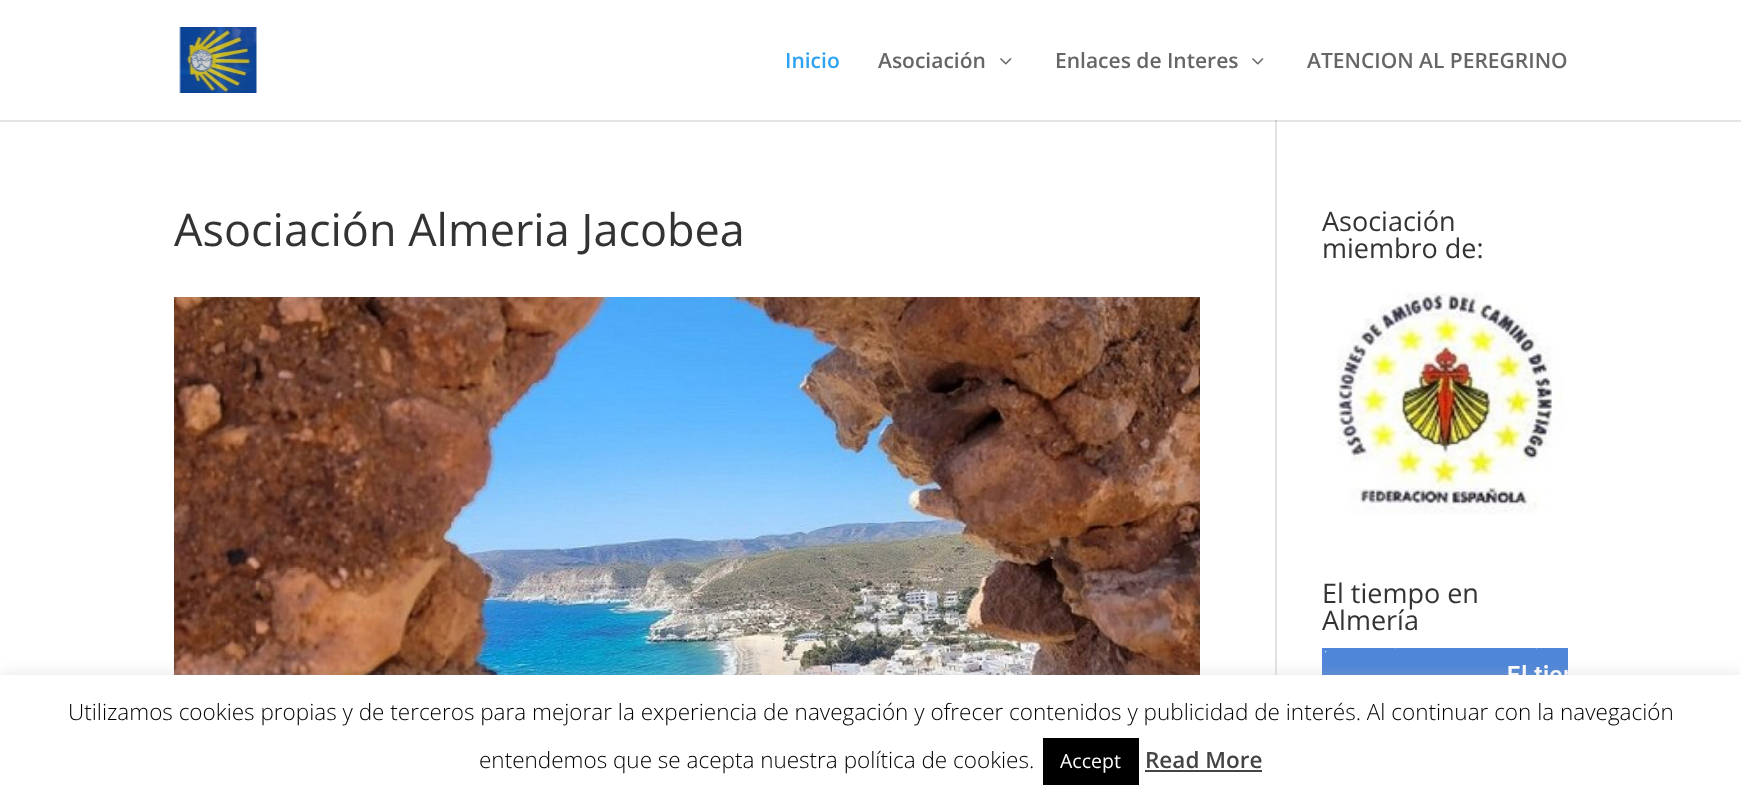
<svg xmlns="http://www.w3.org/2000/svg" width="1741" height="802">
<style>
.a{font:600 21px Open Sans;fill:#2ea3f2}
.b{font:600 21px Open Sans;fill:#666}
.c{font:45px Open Sans;fill:#333}
.d{font:27px Open Sans;fill:#333}
.e{font:300 22.5px Open Sans;fill:#000}
.f{font:19.5px Open Sans;fill:#fff}
.g{font:600 22.5px Open Sans;fill:#444}
</style>
<rect width="100%" height="100%" fill="#fff"/>
<path fill="#e2e2e2" d="M1275 120h2v555H1275z"/>
<path fill="#0000001a" d="M0 120v2h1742v-120v118z"/>
<image href="1.png" x="179" y="27" width="78" height="66"/>
<image href="2.png" x="1000" y="58" width="12" height="7"/>
<image href="2.png" x="1252" y="58" width="12" height="7"/>
<image href="3.png" x="174" y="297" width="1026" height="378"/>
<image href="4.png" x="1335" y="292" width="228" height="223"/>
<image href="5.png" x="1322" y="648" width="246" height="27"/>
<path fill="#acabab4d" filter="blur(7.5px)" d="M0 674h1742v127H0z"/>
<path fill="#fff" d="M0 675h1741v127H0z"/>
<path fill="#000" d="M1043 738h96v47H1043z"/>
<path fill="#444" d="M1145 770h117v2H1145z"/>
<text class="a" x="785" y="68">Inicio</text>
<text class="b" x="878" y="68">Asociación</text>
<text class="b" x="1055" y="68">Enlaces de Interes</text>
<text class="b" x="1307" y="68">ATENCION AL PEREGRINO</text>
<text class="c" x="174" y="246">Asociación Almeria Jacobea</text>
<text class="d" x="1322" y="231">Asociación</text>
<text class="d" x="1322" y="258">miembro de:</text>
<text class="d" x="1322" y="603">El tiempo en</text>
<text class="d" x="1322" y="630">Almería</text>
<text class="e" x="68" y="720">Utilizamos cookies propias y de terceros para mejorar la experiencia de navegación y ofrecer contenidos y publicidad de interés. Al continuar con la navegación</text>
<text class="e" x="479" y="768">entendemos que se acepta nuestra política de cookies.</text>
<text class="f" x="1060" y="768">Accept</text>
<text class="g" x="1145" y="768">Read More</text>
</svg>
